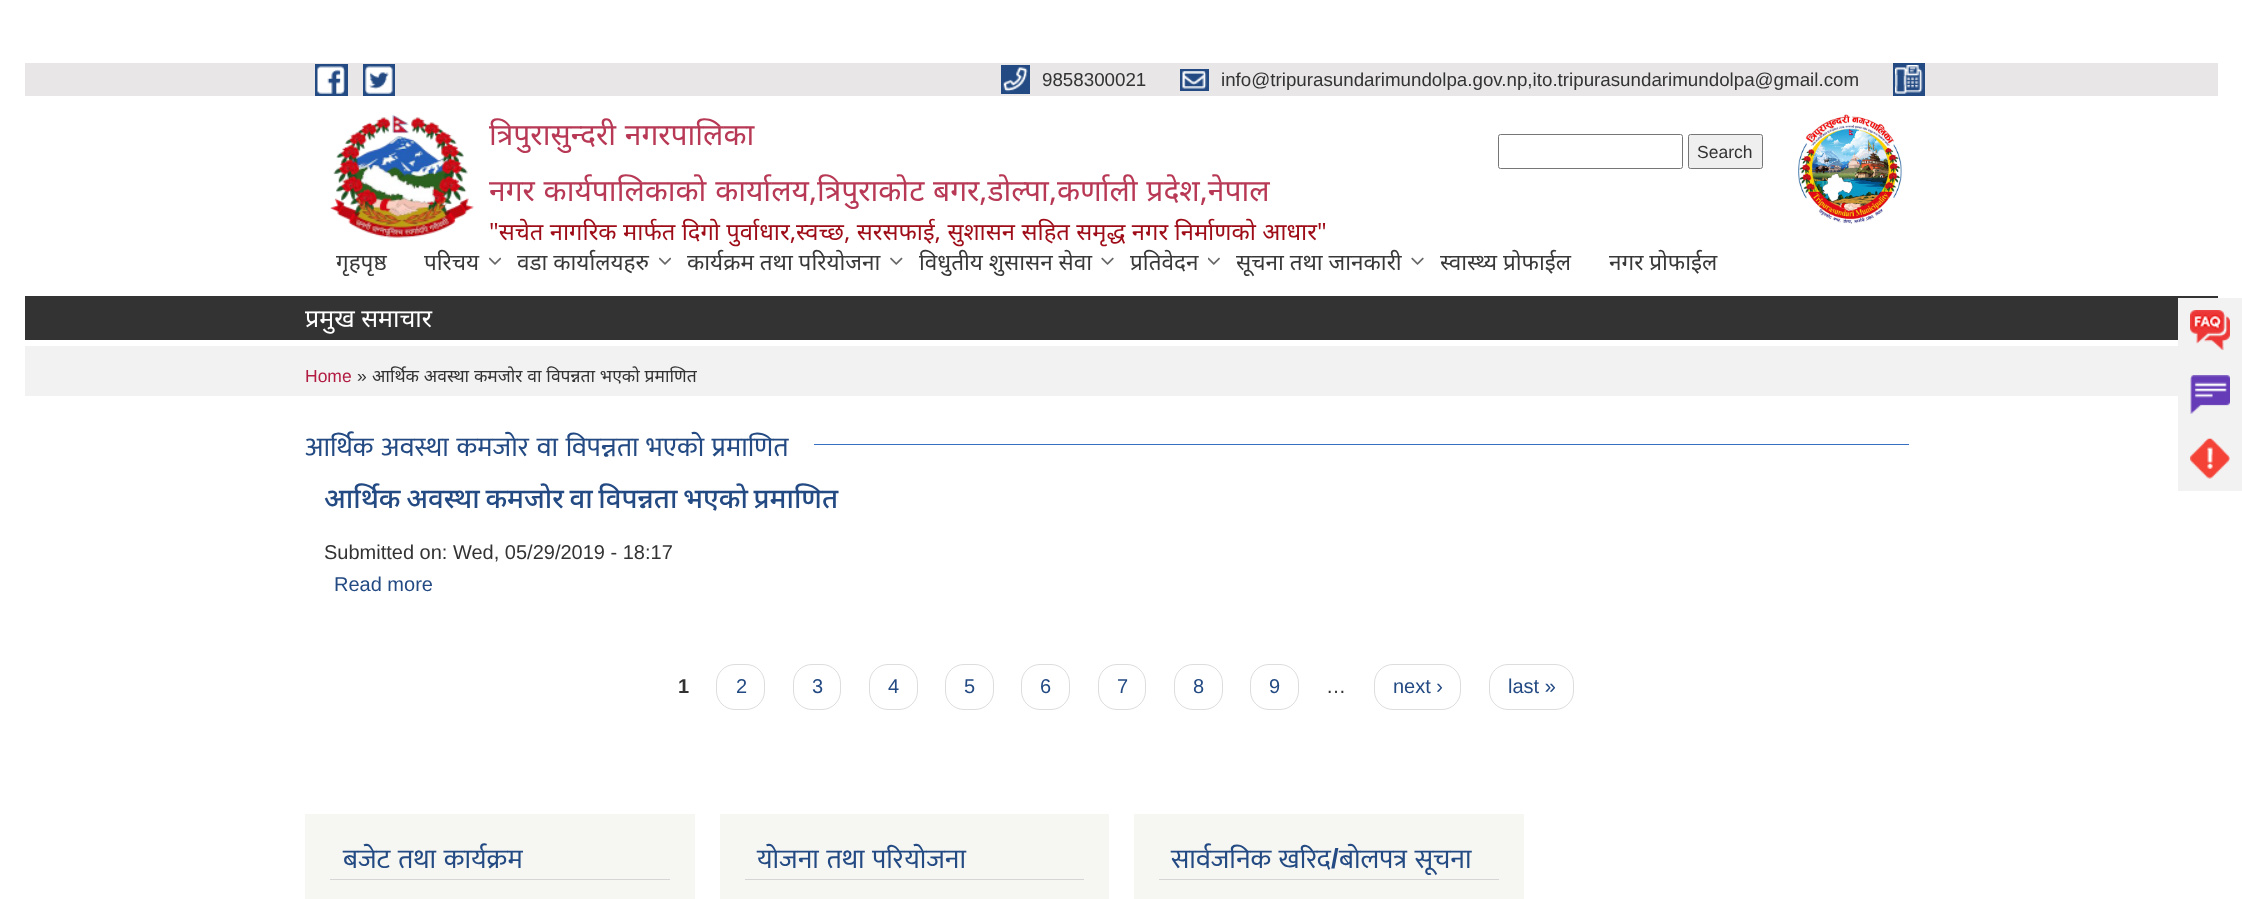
<svg xmlns="http://www.w3.org/2000/svg" width="2242" height="899">
<style>
.a{font:18.75px Liberation Sans;fill:#333}
.b{font:30px Noto Sans;fill:#b83955}
.c{font:23.75px Noto Sans;fill:#9e0c18}
.d{font:17.5px Liberation Sans;fill:#333}
.e{font:22.5px Noto Sans;fill:#393939}
.f{font:25px Noto Sans;fill:#fff}
.g{font:17.5px Liberation Sans;fill:#b21c42}
.h{font:17.5px Noto Sans;fill:#333}
.i{font:27.5px Mukta;fill:#234a83}
.j{font:500 27.6px Noto Sans;fill:#234a83}
.k{font:20px Liberation Sans;fill:#333}
.l{font:20px Liberation Sans;fill:#234a83}
.m{font:bold 20px Liberation Sans;fill:#333}
.n{font:bold 27.5px Liberation Sans;fill:#234a83}
</style>
<rect width="100%" height="100%" fill="#fff"/>
<path fill="#e8e6e6" d="M25 63h2193v33H25z"/>
<path fill="#234a83" d="M315 64h33v32H315z"/>
<path fill="#234a83" d="M363 64h32v32H363z"/>
<image href="1.png" x="317" y="66" width="28" height="28"/>
<image href="2.png" x="365" y="66" width="28" height="28"/>
<path fill="#234a83" d="M1893 63h32v33H1893z"/>
<path fill="#234a83" d="M1001 65h29v29H1001z"/>
<image href="3.png" x="1003" y="67" width="25" height="25"/>
<path fill="#234a83" d="M1180 69h29v22H1180z"/>
<image href="4.png" x="1182" y="71" width="25" height="18"/>
<image href="5.png" x="1895" y="65" width="28" height="29"/>
<image href="6.png" x="330" y="114" width="144" height="124"/>
<rect fill="none" stroke="#767676" x="1498.5" y="134.5" width="184" height="34" rx="2"/>
<rect fill="#efefef" stroke="#767676" x="1688.5" y="134.5" width="74" height="34" rx="2"/>
<image href="7.png" x="1798" y="114" width="104" height="110"/>
<image href="8.png" x="489" y="257" width="12" height="8"/>
<image href="8.png" x="659" y="257" width="12" height="8"/>
<image href="9.png" x="890" y="257" width="13" height="8"/>
<image href="10.png" x="1101" y="257" width="13" height="8"/>
<image href="11.png" x="1208" y="257" width="12" height="8"/>
<image href="10.png" x="1411" y="257" width="13" height="8"/>
<path fill="#333" d="M25 296h2193v44H25z"/>
<path fill="#f2f2f2" d="M25 346h2153v50H25z"/>
<path fill="#376fc2" d="M814 444h1095v1H814z"/>
<rect fill="none" stroke="#ddd" x="716.5" y="664.5" width="48" height="45" rx="18.5"/>
<rect fill="none" stroke="#ddd" x="793.5" y="664.5" width="47" height="45" rx="18.5"/>
<rect fill="none" stroke="#ddd" x="869.5" y="664.5" width="48" height="45" rx="18.5"/>
<rect fill="none" stroke="#ddd" x="945.5" y="664.5" width="48" height="45" rx="18.5"/>
<rect fill="none" stroke="#ddd" x="1021.5" y="664.5" width="48" height="45" rx="18.5"/>
<rect fill="none" stroke="#ddd" x="1098.5" y="664.5" width="47" height="45" rx="18.5"/>
<rect fill="none" stroke="#ddd" x="1174.5" y="664.5" width="48" height="45" rx="18.5"/>
<rect fill="none" stroke="#ddd" x="1250.5" y="664.5" width="48" height="45" rx="18.5"/>
<rect fill="none" stroke="#ddd" x="1374.5" y="664.5" width="86" height="45" rx="18.5"/>
<rect fill="none" stroke="#ddd" x="1489.5" y="664.5" width="84" height="45" rx="18.5"/>
<path fill="#f6f6f2" d="M305 814h390v85H305z"/>
<path fill="#d6d6d6" d="M330 879h340v1H330z"/>
<path fill="#f6f6f2" d="M720 814h389v85H720z"/>
<path fill="#d6d6d6" d="M745 879h339v1H745z"/>
<path fill="#f6f6f2" d="M1134 814h390v85H1134z"/>
<path fill="#d6d6d6" d="M1159 879h340v1H1159z"/>
<path fill="#f2f2f2" d="M2178 298h64v193H2178z"/>
<image href="12.png" x="2190" y="310" width="40" height="40"/>
<image href="13.png" x="2190" y="375" width="40" height="39"/>
<image href="14.png" x="2190" y="438" width="40" height="41"/>
<text class="a" x="1042" y="86">9858300021</text>
<text class="a" x="1221" y="86">info@tripurasundarimundolpa.gov.np,ito.tripurasundarimundolpa@gmail.com</text>
<text class="b" x="489" y="145" word-spacing="1">त्रिपुरासुन्दरी नगरपालिका</text>
<text class="b" x="489" y="201" word-spacing="1">नगर कार्यपालिकाको कार्यालय,त्रिपुराकोट बगर,डोल्पा,कर्णाली प्रदेश,नेपाल</text>
<text class="c" x="489" y="240" word-spacing="0.25">"सचेत नागरिक मार्फत दिगो पुर्वाधार,स्वच्छ, सरसफाई, सुशासन सहित समृद्ध नगर निर्माणको आधार"</text>
<text class="d" x="1697" y="158">Search</text>
<text class="e" x="336" y="270">गृहपृष्ठ</text>
<text class="e" x="424" y="270">परिचय</text>
<text class="e" x="517" y="270">वडा कार्यालयहरु</text>
<text class="e" x="687" y="270">कार्यक्रम तथा परियोजना</text>
<text class="e" x="919" y="270">विधुतीय शुसासन सेवा</text>
<text class="e" x="1130" y="270">प्रतिवेदन</text>
<text class="e" x="1236" y="270">सूचना तथा जानकारी</text>
<text class="e" x="1440" y="270">स्वास्थ्य प्रोफाईल</text>
<text class="e" x="1609" y="270">नगर प्रोफाईल</text>
<text class="f" x="305" y="327">प्रमुख समाचार</text>
<text class="g" x="305" y="382">Home</text>
<text class="d" x="357" y="382">»</text>
<text class="h" x="372" y="382" word-spacing="0.25">आर्थिक अवस्था कमजोर वा विपन्नता भएको प्रमाणित</text>
<text class="i" x="305" y="456" word-spacing="1.5">आर्थिक अवस्था कमजोर वा विपन्नता भएको प्रमाणित</text>
<text class="j" x="324" y="508" word-spacing="-1.5">आर्थिक अवस्था कमजोर वा विपन्नता भएको प्रमाणित</text>
<text class="k" x="324" y="559">Submitted on: Wed, 05/29/2019 - 18:17</text>
<text class="l" x="334" y="591">Read more</text>
<text class="m" x="678" y="693">1</text>
<text class="l" x="736" y="693">2</text>
<text class="l" x="812" y="693">3</text>
<text class="l" x="888" y="693">4</text>
<text class="l" x="964" y="693">5</text>
<text class="l" x="1040" y="693">6</text>
<text class="l" x="1117" y="693">7</text>
<text class="l" x="1193" y="693">8</text>
<text class="l" x="1269" y="693">9</text>
<text class="k" x="1326" y="693">…</text>
<text class="l" x="1393" y="693">next ›</text>
<text class="l" x="1508" y="693">last »</text>
<text class="i" x="343" y="868" word-spacing="1.5">बजेट तथा कार्यक्रम</text>
<text class="i" x="757" y="868" word-spacing="1.5">योजना तथा परियोजना</text>
<text class="i" x="1171" y="868" word-spacing="1.5">सार्वजनिक खरिद</text>
<text class="n" x="1331" y="868">/</text>
<text class="i" x="1339" y="868" word-spacing="1.5">बोलपत्र सूचना</text>
</svg>
